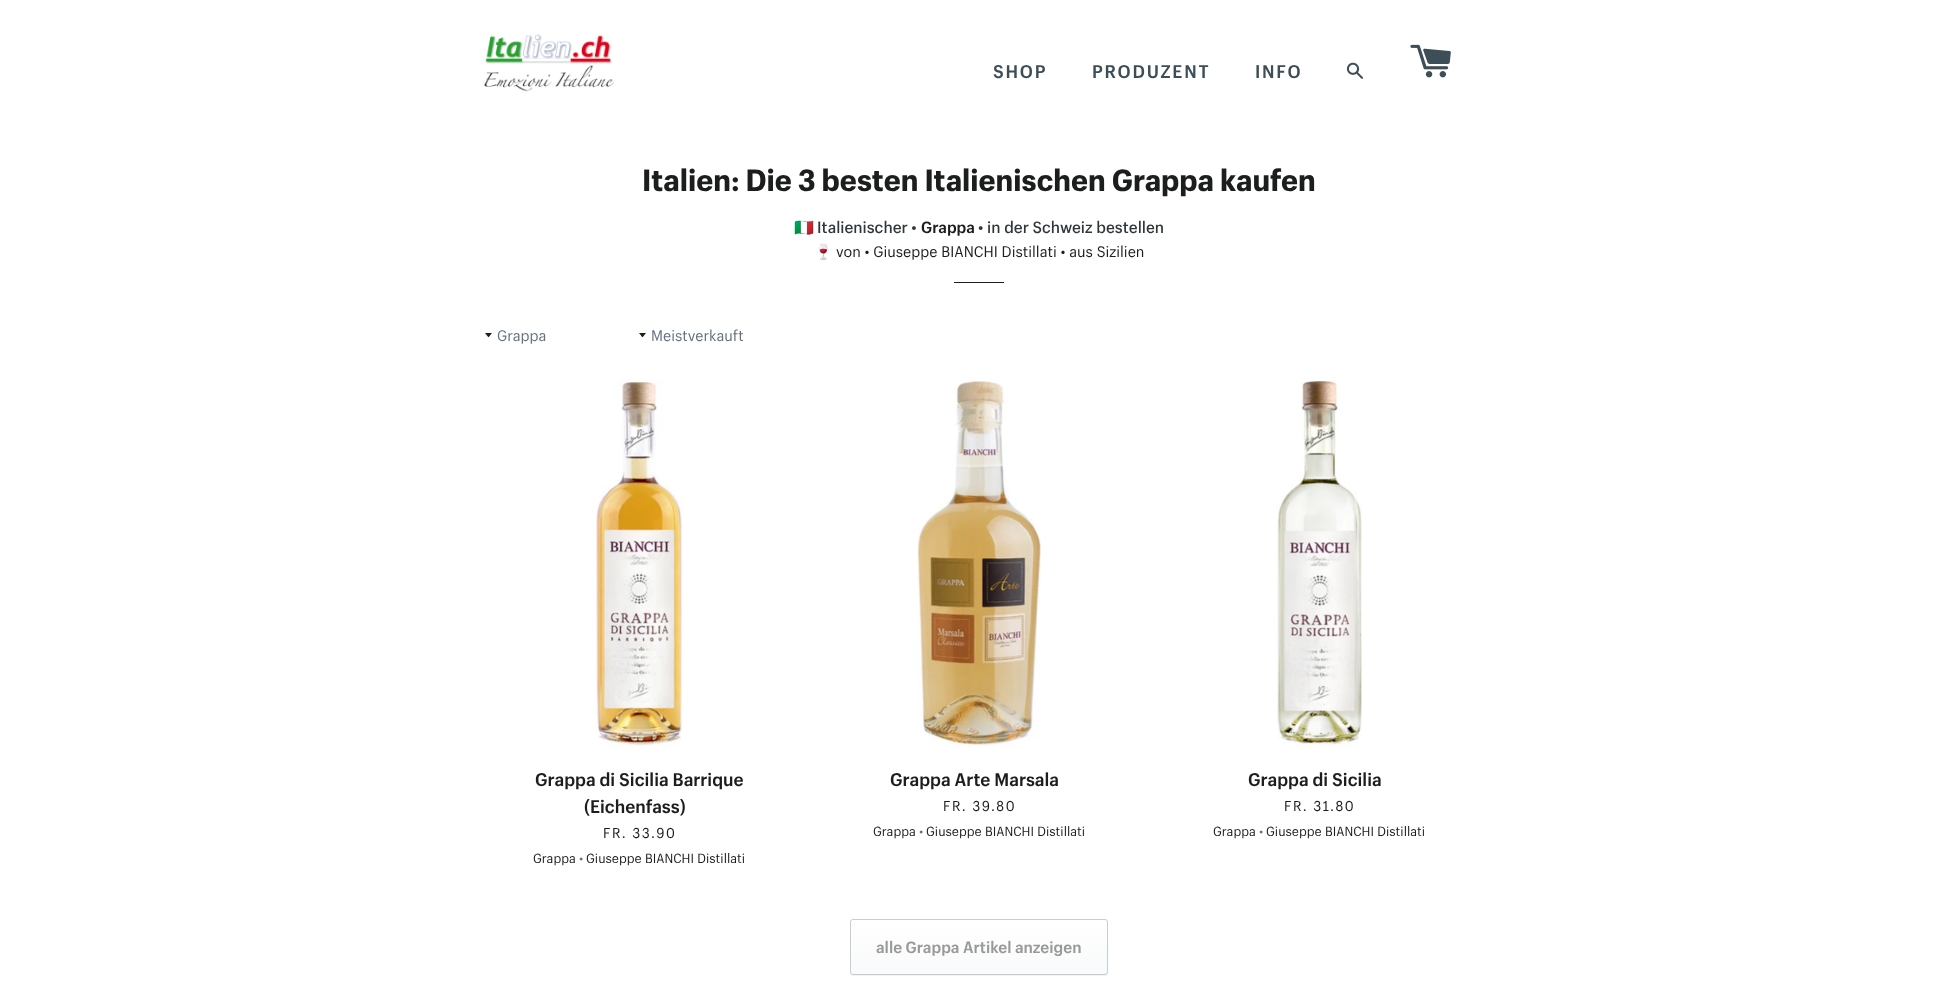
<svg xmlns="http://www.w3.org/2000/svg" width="1958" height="984">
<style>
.a{font:bold 18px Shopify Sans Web;letter-spacing:1.75px;fill:#3e4e57}
.b{font:800 30px Shopify Sans Web;fill:#1c1d1d}
.c{font:16px Noto Color Emoji;fill:#30373b}
.d{font:500 16px Shopify Sans Web;fill:#30373b}
.e{font:bold 16px Shopify Sans Web;fill:#1c1d1d}
.f{font:15px Noto Color Emoji;fill:#1c1d1d}
.g{font:15px Shopify Sans Web;fill:#1c1d1d}
.h{font:15px Shopify Sans Web;fill:#637381}
.i{font:bold 18px Shopify Sans Web;fill:#1c1d1d}
.j{font:14px Shopify Sans Web;letter-spacing:1.5px;fill:#1c1d1d}
.k{font:13px Shopify Sans Web;fill:#1c1d1d}
.l{font:13px Shopify Sans Web;fill:#637381}
.m{font:bold 16px Shopify Sans Web;fill:#999}
</style>
<defs>
<clipPath id="clip1"><rect x="850" y="919" width="258" height="56" rx="3"/></clipPath>
<linearGradient id="g1" gradientUnits="userSpaceOnUse" x1="979" y1="920" x2="979" y2="974"><stop offset="0" stop-color="#fff"/><stop offset="1" stop-color="#f9fafb"/></linearGradient>
</defs>
<rect width="100%" height="100%" fill="#fff"/>
<image href="1.png" x="484" y="34" width="130" height="58"/>
<image href="2.png" x="1346" y="62" width="18" height="17"/>
<image href="3.png" x="1410" y="44" width="41" height="34"/>
<path fill="#1c1d1d" d="M954 282h50v1H954z"/>
<path fill="#1c1d1d" d="M485 333c4.5 5.5 2.5 5.5 7 0z"/>
<path fill="#1c1d1d" d="M639 333c4.5 5.5 2.5 5.5 7 0z"/>
<image href="4.png" x="596" y="379" width="87" height="368"/>
<image href="5.png" x="917" y="380" width="124" height="367"/>
<image href="6.png" x="1276" y="380" width="87" height="367"/>
<path fill="#f3f4f4" d="M850 972v1c0 2 1 3 3 3h252c2 0 3-1 3-3v-1c0 2-1 3-3 3h-252c-2 0-3-1-3-3z"/>
<g clip-path="url(#clip1)">
<path fill="url(#g1)" d="M850 920h258v54H850z"/>
</g>
<rect fill="none" stroke="#c4cdd5" x="850.5" y="919.5" width="257" height="55" rx="2.5"/>
<text class="a" x="993" y="78">SHOP</text>
<text class="a" x="1092" y="78">PRODUZENT</text>
<text class="a" x="1255" y="78">INFO</text>
<text class="b" x="642" y="191">Italien: Die 3 besten Italienischen Grappa kaufen</text>
<text class="c" x="794" y="233">🇮🇹</text>
<text class="d" x="817" y="233">Italienischer •</text>
<text class="e" x="921" y="233">Grappa</text>
<text class="d" x="978" y="233">• in der Schweiz bestellen</text>
<text class="f" x="814" y="257">🍷</text>
<text class="g" x="836" y="257">von • Giuseppe BIANCHI Distillati • aus Sizilien</text>
<text class="h" x="497" y="341">Grappa</text>
<text class="h" x="651" y="341">Meistverkauft</text>
<text class="i" x="535" y="786">Grappa di Sicilia Barrique</text>
<text class="i" x="584" y="813">(Eichenfass)</text>
<text class="j" x="603" y="838">FR. 33.90</text>
<text class="k" x="533" y="863">Grappa</text>
<text class="l" x="579" y="863">•</text>
<text class="k" x="586" y="863">Giuseppe BIANCHI Distillati</text>
<text class="i" x="890" y="786">Grappa Arte Marsala</text>
<text class="j" x="943" y="811">FR. 39.80</text>
<text class="k" x="873" y="836">Grappa</text>
<text class="l" x="919" y="836">•</text>
<text class="k" x="926" y="836">Giuseppe BIANCHI Distillati</text>
<text class="i" x="1248" y="786">Grappa di Sicilia</text>
<text class="j" x="1284" y="811">FR. 31.80</text>
<text class="k" x="1213" y="836">Grappa</text>
<text class="l" x="1259" y="836">•</text>
<text class="k" x="1266" y="836">Giuseppe BIANCHI Distillati</text>
<text class="m" x="876" y="953">alle Grappa Artikel anzeigen</text>
</svg>
